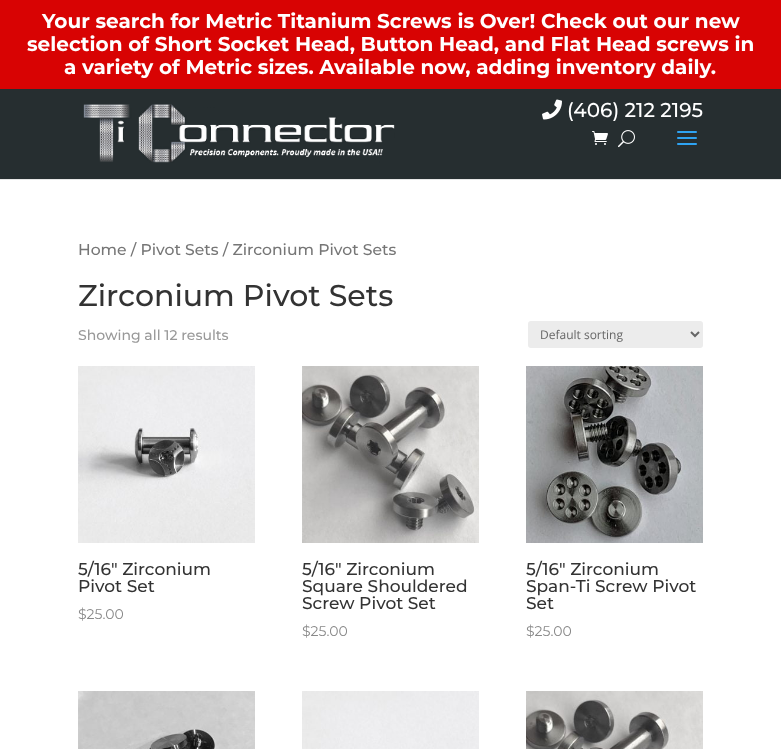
<svg xmlns="http://www.w3.org/2000/svg" width="781" height="749">
<style>
.a{font:100 20px 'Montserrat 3';fill:#fff}
.b{font:100 20px Montserrat;fill:#fff}
.c{font:100 15.6px Montserrat;fill:#767676}
.d{font:100 30px Montserrat;fill:#333}
.e{font:100 14px Montserrat;fill:#999}
.f{font:12px Open Sans;fill:#666}
.g{font:100 17px Montserrat;fill:#333}
.h{font:100 14px 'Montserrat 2';fill:#898989}
</style>
<rect width="100%" height="100%" fill="#fff"/>
<path fill="#e6e6e6" d="M0 179h781v1H0z"/>
<path fill="#262e30" d="M0 89h781v90H0z"/>
<path fill="#d80303" d="M0 0h781v89H0z"/>
<image href="1.png" x="83" y="104" width="312" height="59"/>
<image href="2.png" x="542" y="99" width="20" height="21"/>
<image href="3.png" x="592" y="131" width="16" height="14"/>
<image href="4.png" x="618" y="130" width="17" height="18"/>
<image href="5.png" x="677" y="131" width="20" height="14"/>
<rect fill="#ececec" x="528" y="321" width="175" height="27" rx="3"/>
<path fill="none" stroke="#666" stroke-width="2" d="M691 332l4 4l4-4"/>
<image href="6.png" x="78" y="366" width="177" height="177"/>
<image href="7.png" x="302" y="366" width="177" height="177"/>
<image href="8.png" x="526" y="366" width="177" height="177"/>
<image href="9.png" x="78" y="691" width="177" height="58"/>
<image href="10.png" x="302" y="691" width="177" height="58"/>
<image href="11.png" x="526" y="691" width="177" height="58"/>
<text class="a" x="42" y="28">Your search for Metric Titanium Screws is Over! Check out our new</text>
<text class="a" x="27" y="51">selection of Short Socket Head, Button Head, and Flat Head screws in</text>
<text class="a" x="64" y="74">a variety of Metric sizes. Available now, adding inventory daily.</text>
<text class="b" x="567" y="117">(406) 212 2195</text>
<text class="c" x="78" y="255">Home / Pivot Sets / Zirconium Pivot Sets</text>
<text class="d" x="78" y="306">Zirconium Pivot Sets</text>
<text class="e" x="78" y="340">Showing all 12 results</text>
<text class="f" x="540" y="339">Default sorting</text>
<text class="g" x="78" y="575">5/16″ Zirconium</text>
<text class="g" x="78" y="592">Pivot Set</text>
<text class="h" x="78" y="619">$25.00</text>
<text class="g" x="302" y="575">5/16″ Zirconium</text>
<text class="g" x="302" y="592">Square Shouldered</text>
<text class="g" x="302" y="609">Screw Pivot Set</text>
<text class="h" x="302" y="636">$25.00</text>
<text class="g" x="526" y="575">5/16″ Zirconium</text>
<text class="g" x="526" y="592">Span-Ti Screw Pivot</text>
<text class="g" x="526" y="609">Set</text>
<text class="h" x="526" y="636">$25.00</text>
</svg>
